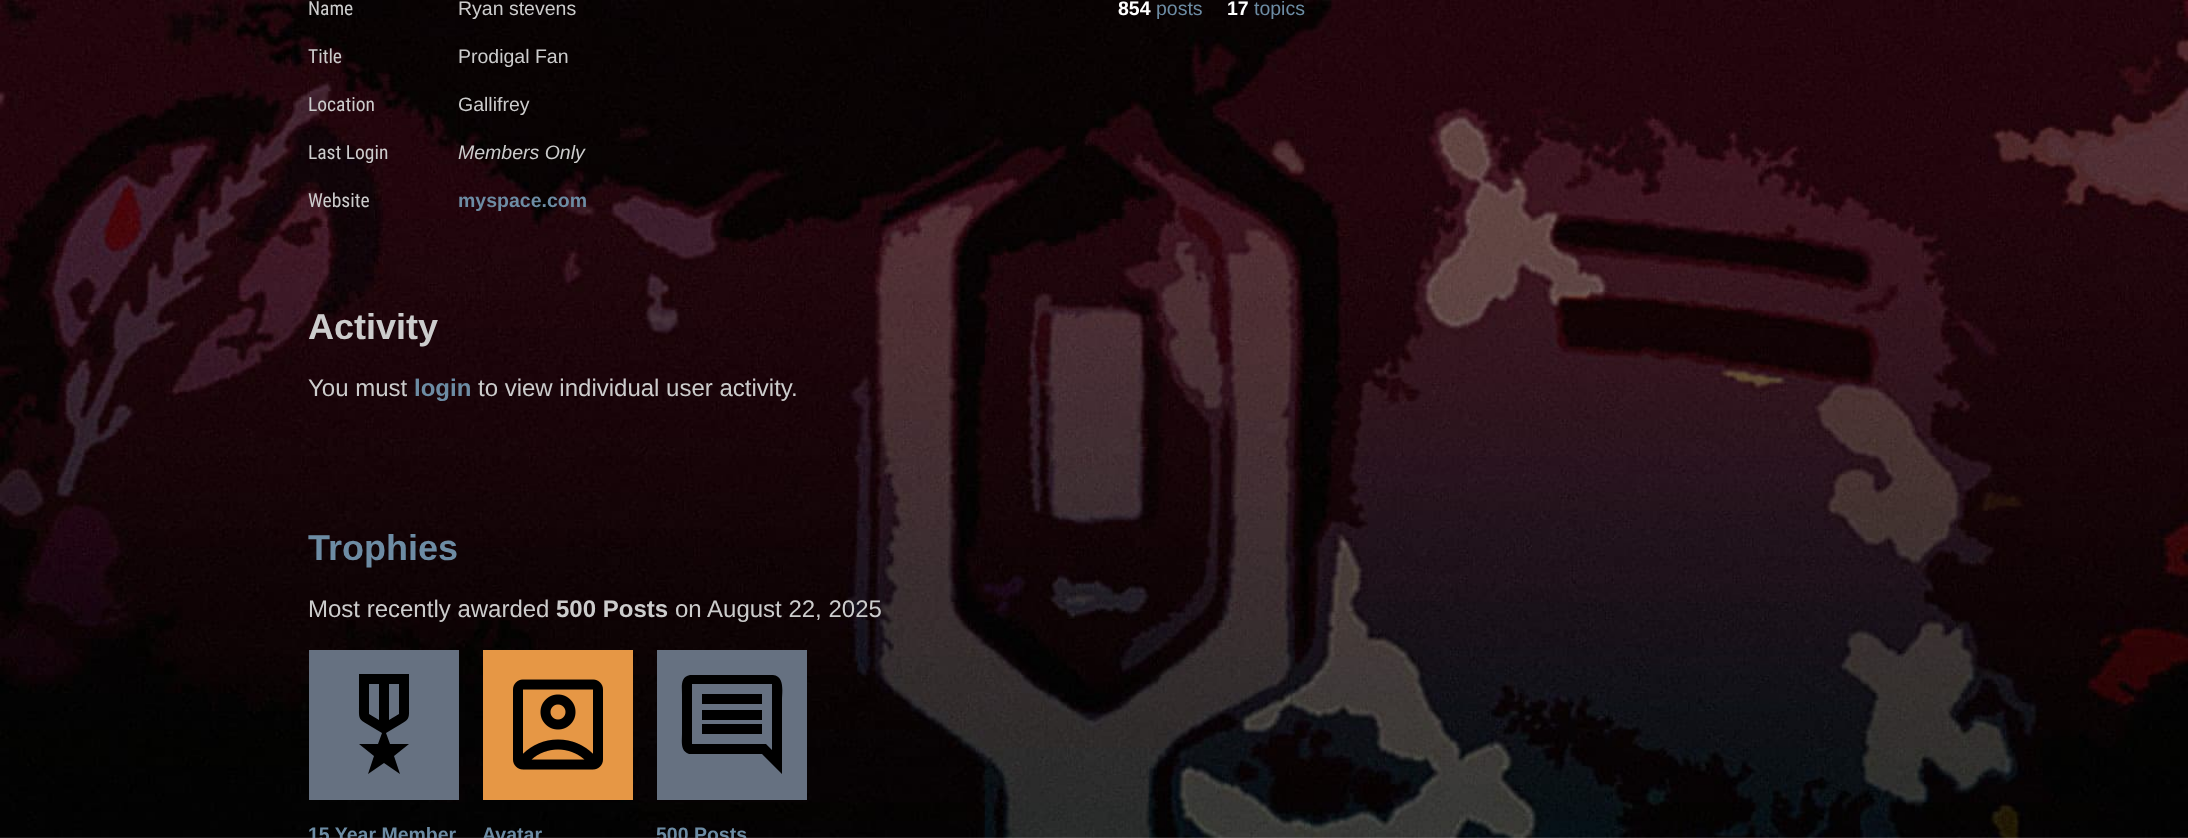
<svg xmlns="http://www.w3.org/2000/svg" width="2188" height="838">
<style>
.a{font:19.5px Roboto Condensed;fill:#ccc}
.b{font:19.5px Liberation Sans;fill:#ccc}
.c{font:italic 19.5px Liberation Sans;fill:#ccc}
.d{font:bold 19.5px Liberation Sans;fill:#6d8ca4}
.e{font:bold 19.5px Liberation Sans;fill:#fff}
.f{font:19.5px Liberation Sans;fill:#6d8ca4}
.g{font:bold 36px Liberation Sans;fill:#ccc}
.h{font:24px Liberation Sans;fill:#ccc}
.i{font:bold 24px Liberation Sans;fill:#6d8ca4}
.j{font:bold 36px Liberation Sans;fill:#6d8ca4}
.k{font:bold 24px Liberation Sans;fill:#ccc}
</style>
<rect width="100%" height="100%" fill="#fff"/>
<image href="1.png" x="0" y="0" width="2188" height="838"/>
<path fill="#667181" d="M309 650h150v150H309z"/>
<path fill="#000" d="M359 674h50v33c0 10 1 12-8 17l-15 9l4 11h19l-15 12l6 18l-16-11l-16 11l6-18l-15-12h19l4-11l-15-9c-9-5-8-7-8-17zm10 10v30l10 6v-36zm30 0h-10v36l10-6zm-15 20zm-5-2zm10 0z"/>
<path fill="#e69745" d="M483 650h150v150H483z"/>
<image href="2.png" x="513" y="679" width="90" height="91"/>
<path fill="#667181" d="M657 650h150v150H657z"/>
<path fill="#000" d="M702 734h60v-10h-60zm0-14h60v-10h-60zm0-16h60v-10h-60zm80 70l-20-20h-73c-9-3-7-13-7-20v-40c0-7-2-17 8-19h83c12 1 9 17 9 25zm-90-30h74l6 6v-66h-80zm0 0v-60z"/>
<text class="a" x="308" y="15">Name</text>
<text class="b" x="458" y="15">Ryan stevens</text>
<text class="a" x="308" y="63">Title</text>
<text class="b" x="458" y="63">Prodigal Fan</text>
<text class="a" x="308" y="111">Location</text>
<text class="b" x="458" y="111">Gallifrey</text>
<text class="a" x="308" y="159">Last Login</text>
<text class="c" x="458" y="159">Members Only</text>
<text class="a" x="308" y="207">Website</text>
<text class="d" x="458" y="207">myspace.com</text>
<text class="e" x="1118" y="15">854</text>
<text class="f" x="1156" y="15">posts</text>
<text class="e" x="1227" y="15">17</text>
<text class="f" x="1254" y="15">topics</text>
<text class="g" x="308" y="339">Activity</text>
<text class="h" x="308" y="396">You must</text>
<text class="i" x="414" y="396">login</text>
<text class="h" x="478" y="396">to view individual user activity.</text>
<text class="j" x="308" y="560">Trophies</text>
<text class="h" x="308" y="617">Most recently awarded</text>
<text class="k" x="556" y="617">500 Posts</text>
<text class="h" x="675" y="617">on August 22, 2025</text>
<text class="d" x="308" y="841">15 Year Member</text>
<text class="d" x="482" y="841">Avatar</text>
<text class="d" x="656" y="841">500 Posts</text>
</svg>
